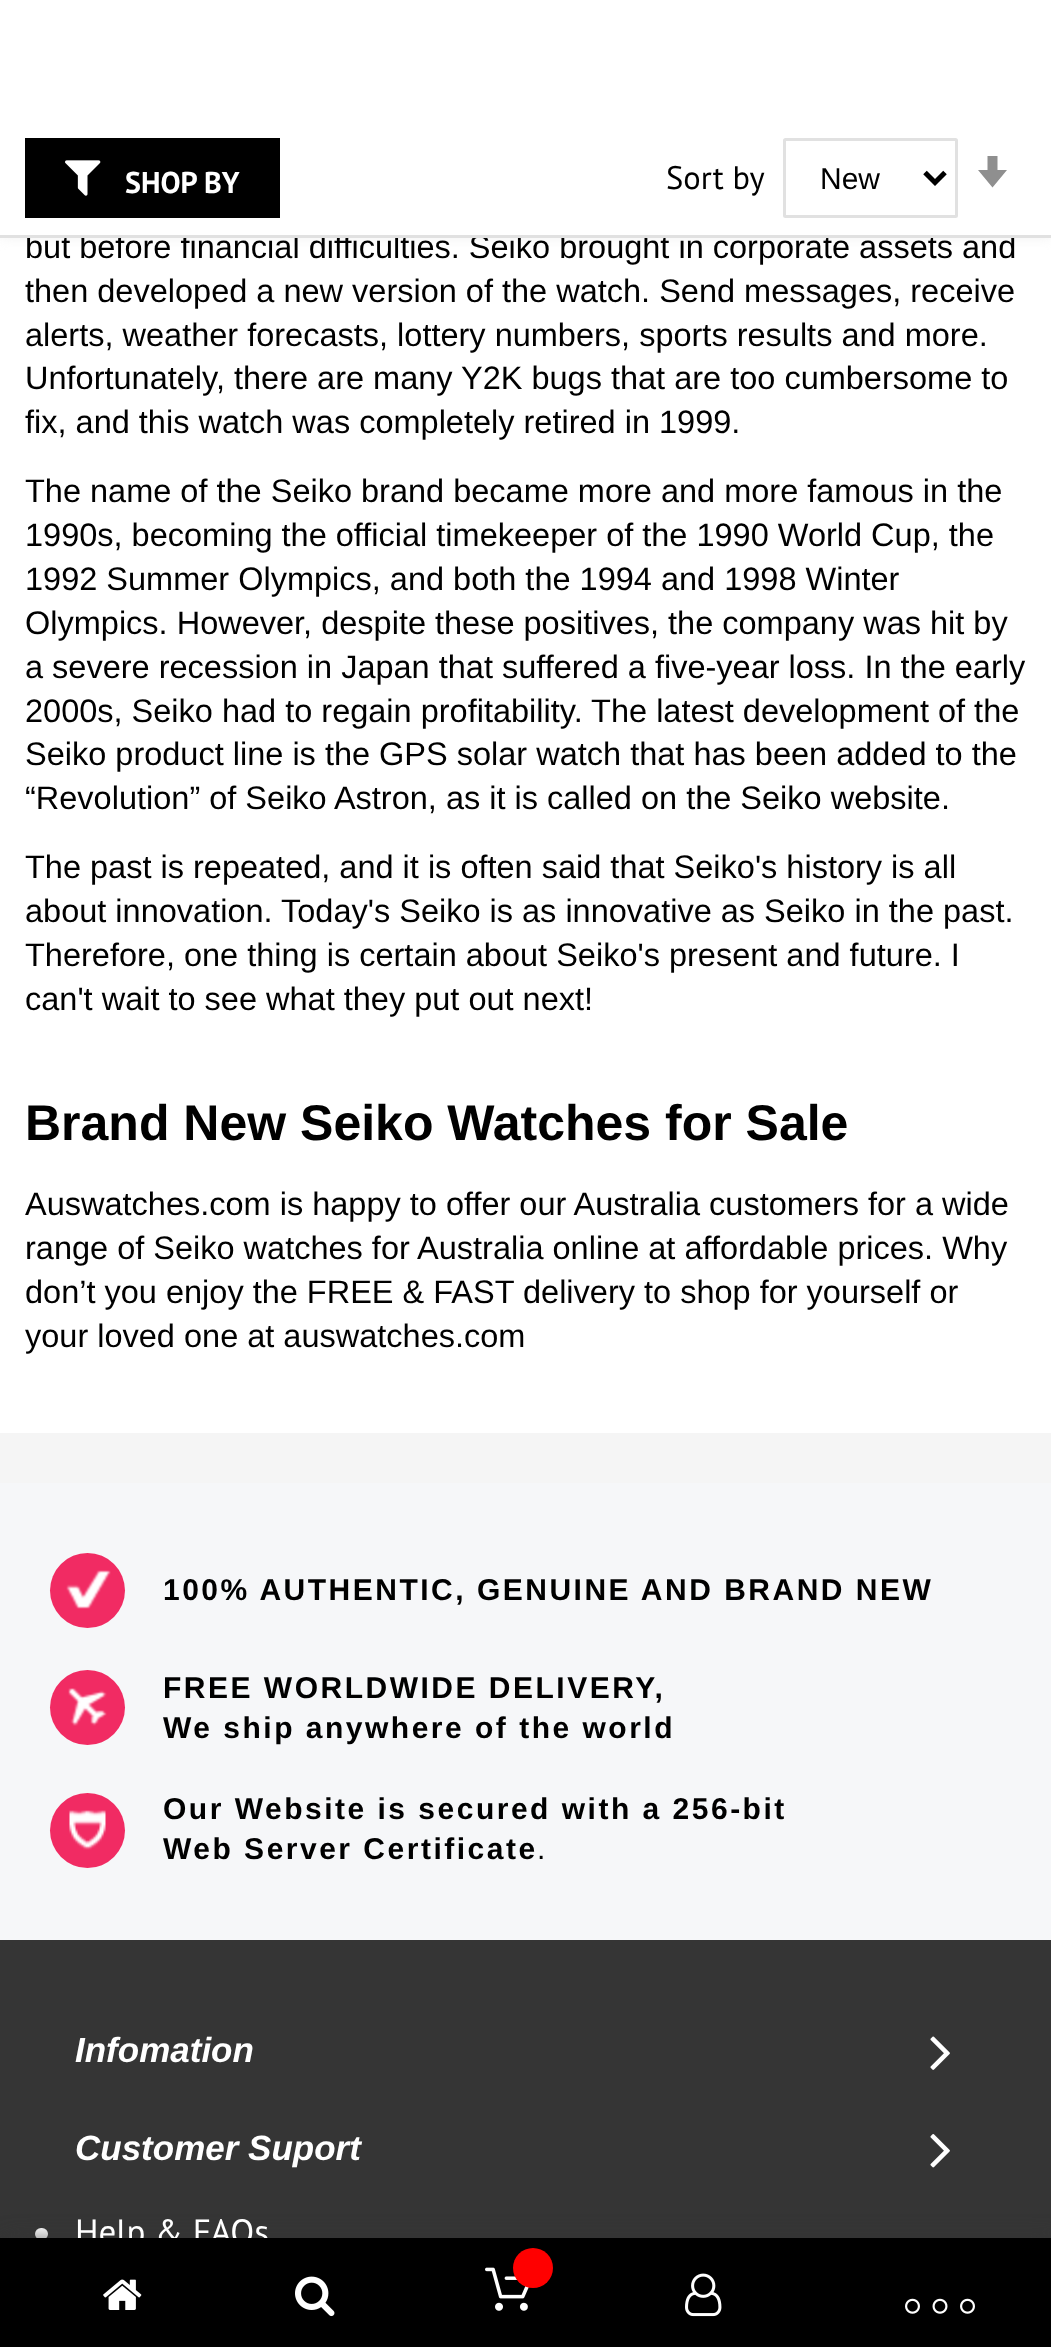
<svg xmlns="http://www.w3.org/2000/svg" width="1051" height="2347">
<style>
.a{font:32.5px Liberation Sans;fill:#000}
.b{font:bold 30px PT Sans;fill:#fff}
.c{font:30px Liberation Sans;fill:#000}
.d{font:32.5px PT Sans;fill:#000}
.e{font:bold 50px Liberation Sans;fill:#000}
.f{font:bold 30px Liberation Sans;letter-spacing:2.5px;fill:#000}
.g{font:30px Liberation Sans;letter-spacing:2.5px;fill:#000}
.h{font:italic bold 35px Liberation Sans;fill:#fff}
.i{font:35px PT Sans;fill:#fff}
</style>
<rect width="100%" height="100%" fill="#f5f5f5"/>
<path fill="#fff" d="M0 238h1051v1195H0z"/>
<path fill="#e5e5e580" filter="blur(6px)" d="M0 0h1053v238H0z"/>
<path fill="#f6f7f9" d="M0 1483h1051v457H0z"/>
<circle fill="#f12b63" cx="87.5" cy="1590.5" r="37.5"/>
<image href="2.png" x="66" y="1570" width="45" height="39"/>
<circle fill="#f12b63" cx="87.5" cy="1707.5" r="37.5"/>
<image href="3.png" x="68" y="1688" width="39" height="38"/>
<circle fill="#f12b63" cx="87.5" cy="1830.5" r="37.5"/>
<image href="4.png" x="69" y="1810" width="37" height="40"/>
<path fill="#353535" d="M0 1940h1051v298H0z"/>
<image href="5.png" x="930" y="2036" width="20" height="34"/>
<image href="6.png" x="930" y="2134" width="20" height="34"/>
<rect fill="#fff" x="35" y="2228" width="13" height="12" rx="6"/>
<path fill="#333" filter="blur(12.5px)" d="M5 2243h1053v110H5z"/>
<text class="a" x="25" y="258">but before financial difficulties. Seiko brought in corporate assets and</text>
<path fill="#fff" d="M0 0h1051v235H0z"/>
<path fill="#8f8f8f" d="M997.5 170v-14h-10v14h-9.5l14.5 17.5l14.5-17.5z"/>
<path fill="#000" d="M25 138h255v80H25z"/>
<text class="b" x="125" y="193">SHOP BY</text>
<image href="1.png" x="65" y="160" width="36" height="36"/>
<rect fill="none" stroke="#e1e1e1" stroke-width="3" x="784.5" y="139.5" width="172" height="77" rx="1"/>
<text class="c" x="820" y="189">New</text>
<path fill="none" stroke="#000" stroke-width="5" d="M925 172.5l10 10l10-10"/>
<text class="d" x="666" y="189">Sort by</text>
<path fill="#e1e1e1" d="M0 235h1051v3H0z"/>
<text class="a" x="25" y="302">then developed a new version of the watch. Send messages, receive</text>
<text class="a" x="25" y="346">alerts, weather forecasts, lottery numbers, sports results and more.</text>
<text class="a" x="25" y="389">Unfortunately, there are many Y2K bugs that are too cumbersome to</text>
<text class="a" x="25" y="433">fix, and this watch was completely retired in 1999.</text>
<text class="a" x="25" y="502">The name of the Seiko brand became more and more famous in the</text>
<text class="a" x="25" y="546">1990s, becoming the official timekeeper of the 1990 World Cup, the</text>
<text class="a" x="25" y="590">1992 Summer Olympics, and both the 1994 and 1998 Winter</text>
<text class="a" x="25" y="634">Olympics. However, despite these positives, the company was hit by</text>
<text class="a" x="25" y="678">a severe recession in Japan that suffered a five-year loss. In the early</text>
<text class="a" x="25" y="722">2000s, Seiko had to regain profitability. The latest development of the</text>
<text class="a" x="25" y="765">Seiko product line is the GPS solar watch that has been added to the</text>
<text class="a" x="25" y="809">“Revolution” of Seiko Astron, as it is called on the Seiko website.</text>
<text class="a" x="25" y="878">The past is repeated, and it is often said that Seiko's history is all</text>
<text class="a" x="25" y="922">about innovation. Today's Seiko is as innovative as Seiko in the past.</text>
<text class="a" x="25" y="966">Therefore, one thing is certain about Seiko's present and future. I</text>
<text class="a" x="25" y="1010">can't wait to see what they put out next!</text>
<text class="e" x="25" y="1140">Brand New Seiko Watches for Sale</text>
<text class="a" x="25" y="1215">Auswatches.com is happy to offer our Australia customers for a wide</text>
<text class="a" x="25" y="1259">range of Seiko watches for Australia online at affordable prices. Why</text>
<text class="a" x="25" y="1303">don’t you enjoy the FREE &amp; FAST delivery to shop for yourself or</text>
<text class="a" x="25" y="1347">your loved one at auswatches.com</text>
<text class="f" x="163" y="1600">100% AUTHENTIC, GENUINE AND BRAND NEW</text>
<text class="f" x="163" y="1698">FREE WORLDWIDE DELIVERY,</text>
<text class="f" x="163" y="1738">We ship anywhere of the world</text>
<text class="f" x="163" y="1819">Our Website is secured with a 256-bit</text>
<text class="f" x="163" y="1859">Web Server Certificate</text>
<text class="g" x="537" y="1859">.</text>
<text class="h" x="75" y="2062">Infomation</text>
<text class="h" x="75" y="2160">Customer Suport</text>
<text class="i" x="75" y="2244">Help &amp; FAQs</text>
<path fill="#000" d="M0 2238h1051v109H0z"/>
<image href="7.png" x="103" y="2279" width="39" height="31"/>
<image href="8.png" x="295" y="2276" width="40" height="41"/>
<image href="9.png" x="485" y="2267" width="44" height="44"/>
<circle fill="#f00" cx="533" cy="2268" r="20"/>
<image href="10.png" x="685" y="2273" width="37" height="44"/>
<image href="11.png" x="905" y="2298" width="15" height="16"/>
<image href="12.png" x="932" y="2298" width="16" height="16"/>
<image href="11.png" x="960" y="2298" width="15" height="16"/>
</svg>
